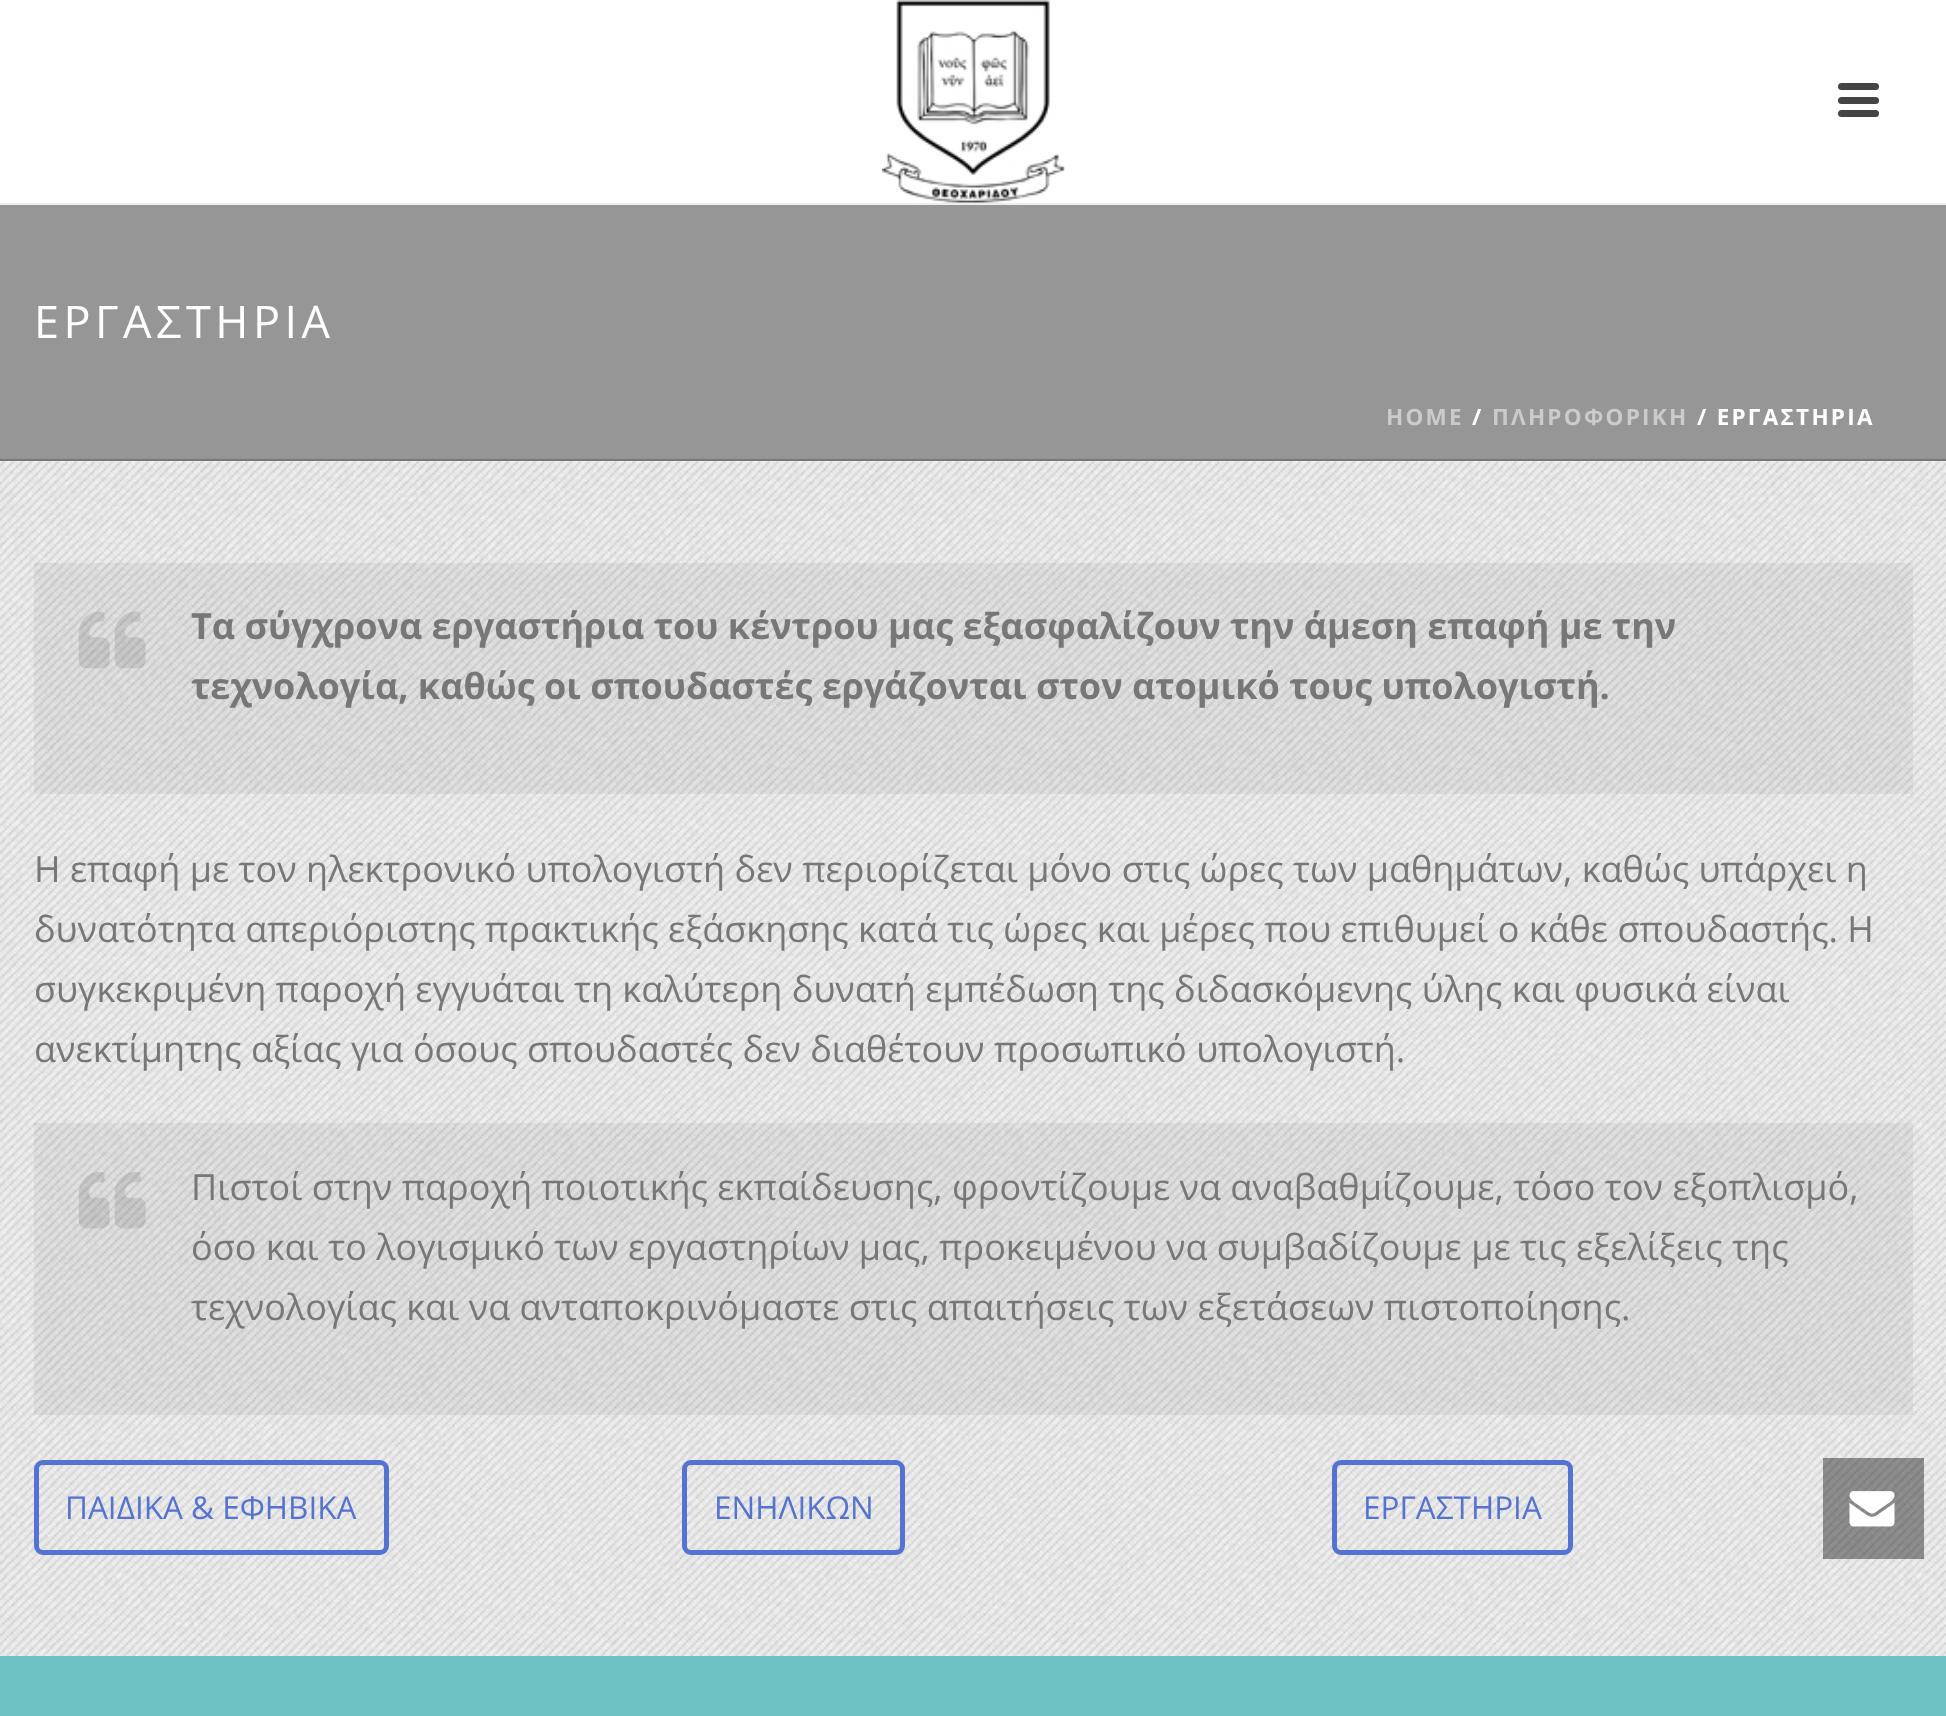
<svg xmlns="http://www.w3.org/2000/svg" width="1946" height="1716">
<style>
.a{font:45px Open Sans;letter-spacing:4.5px;fill:#fff}
.b{font:bold 22.5px Open Sans;letter-spacing:2.25px;fill:#cbcbcb}
.c{font:bold 22.5px Open Sans;letter-spacing:2.25px;fill:#fff}
.d{font:bold 36px Open Sans;fill:#777}
.e{font:36px Open Sans;fill:#777}
.f{font:31.5px Open Sans;fill:#5472d2}
</style>
<rect width="100%" height="100%" fill="#fff"/>
<path fill="#969696" d="M0 205h1946v254H0z"/>
<path fill="#777" d="M0 459h1946v2H0z"/>
<path fill="#ededed" d="M0 203h1946v2H0z"/>
<image href="1.png" x="882" y="0" width="183" height="203"/>
<rect fill="#444" x="1838" y="83" width="41" height="7" rx="3.5"/>
<rect fill="#444" x="1838" y="97" width="41" height="7" rx="3.5"/>
<rect fill="#444" x="1838" y="110" width="41" height="7" rx="3.5"/>
<image href="2.png" x="0" y="461" width="1946" height="1195"/>
<path fill="#0000000d" d="M34 563h1879v231H34z"/>
<image href="3.png" x="78" y="611" width="68" height="58"/>
<path fill="#0000000d" d="M34 1123h1879v292H34z"/>
<image href="4.png" x="78" y="1172" width="68" height="57"/>
<rect fill="none" stroke="#5472d2" stroke-width="5" x="36.5" y="1462.5" width="350" height="90" rx="6.5"/>
<rect fill="none" stroke="#5472d2" stroke-width="5" x="684.5" y="1462.5" width="218" height="90" rx="6.5"/>
<rect fill="none" stroke="#5472d2" stroke-width="5" x="1334.5" y="1462.5" width="236" height="90" rx="6.5"/>
<path fill="#6ec1c2" d="M0 1656h1946v60H0z"/>
<path fill="#00000066" d="M1823 1458h101v101H1823z"/>
<image href="5.png" x="1849" y="1491" width="46" height="36"/>
<text class="a" x="34" y="338">ΕΡΓΑΣΤΗΡΙΑ</text>
<text class="b" x="1386" y="425">HOME</text>
<text class="c" x="1472" y="425">/</text>
<text class="b" x="1492" y="425">ΠΛΗΡΟΦΟΡΙΚΗ</text>
<text class="c" x="1697" y="425">/ ΕΡΓΑΣΤΗΡΙΑ</text>
<text class="d" x="191" y="639">Tα σύγχρονα εργαστήρια του κέντρου μας εξασφαλίζουν την άμεση επαφή με την</text>
<text class="d" x="191" y="699">τεχνολογία, καθώς οι σπουδαστές εργάζονται στον ατομικό τους υπολογιστή.</text>
<text class="e" x="34" y="882">Η επαφή με τον ηλεκτρονικό υπολογιστή δεν περιορίζεται μόνο στις ώρες των μαθημάτων, καθώς υπάρχει η</text>
<text class="e" x="34" y="942">δυνατότητα απεριόριστης πρακτικής εξάσκησης κατά τις ώρες και μέρες που επιθυμεί ο κάθε σπουδαστής. Η</text>
<text class="e" x="34" y="1002">συγκεκριμένη παροχή εγγυάται τη καλύτερη δυνατή εμπέδωση της διδασκόμενης ύλης και φυσικά είναι</text>
<text class="e" x="34" y="1062">ανεκτίμητης αξίας για όσους σπουδαστές δεν διαθέτουν προσωπικό υπολογιστή.</text>
<text class="e" x="191" y="1200">Πιστοί στην παροχή ποιοτικής εκπαίδευσης, φροντίζουμε να αναβαθμίζουμε, τόσο τον εξοπλισμό,</text>
<text class="e" x="191" y="1260">όσο και το λογισμικό των εργαστηρίων μας, προκειμένου να συμβαδίζουμε με τις εξελίξεις της</text>
<text class="e" x="191" y="1320">τεχνολογίας και να ανταποκρινόμαστε στις απαιτήσεις των εξετάσεων πιστοποίησης.</text>
<text class="f" x="65" y="1519">ΠΑΙΔΙΚΑ &amp; ΕΦΗΒΙΚΑ</text>
<text class="f" x="714" y="1519">ΕΝΗΛΙΚΩΝ</text>
<text class="f" x="1363" y="1519">ΕΡΓΑΣΤΗΡΙΑ</text>
</svg>
